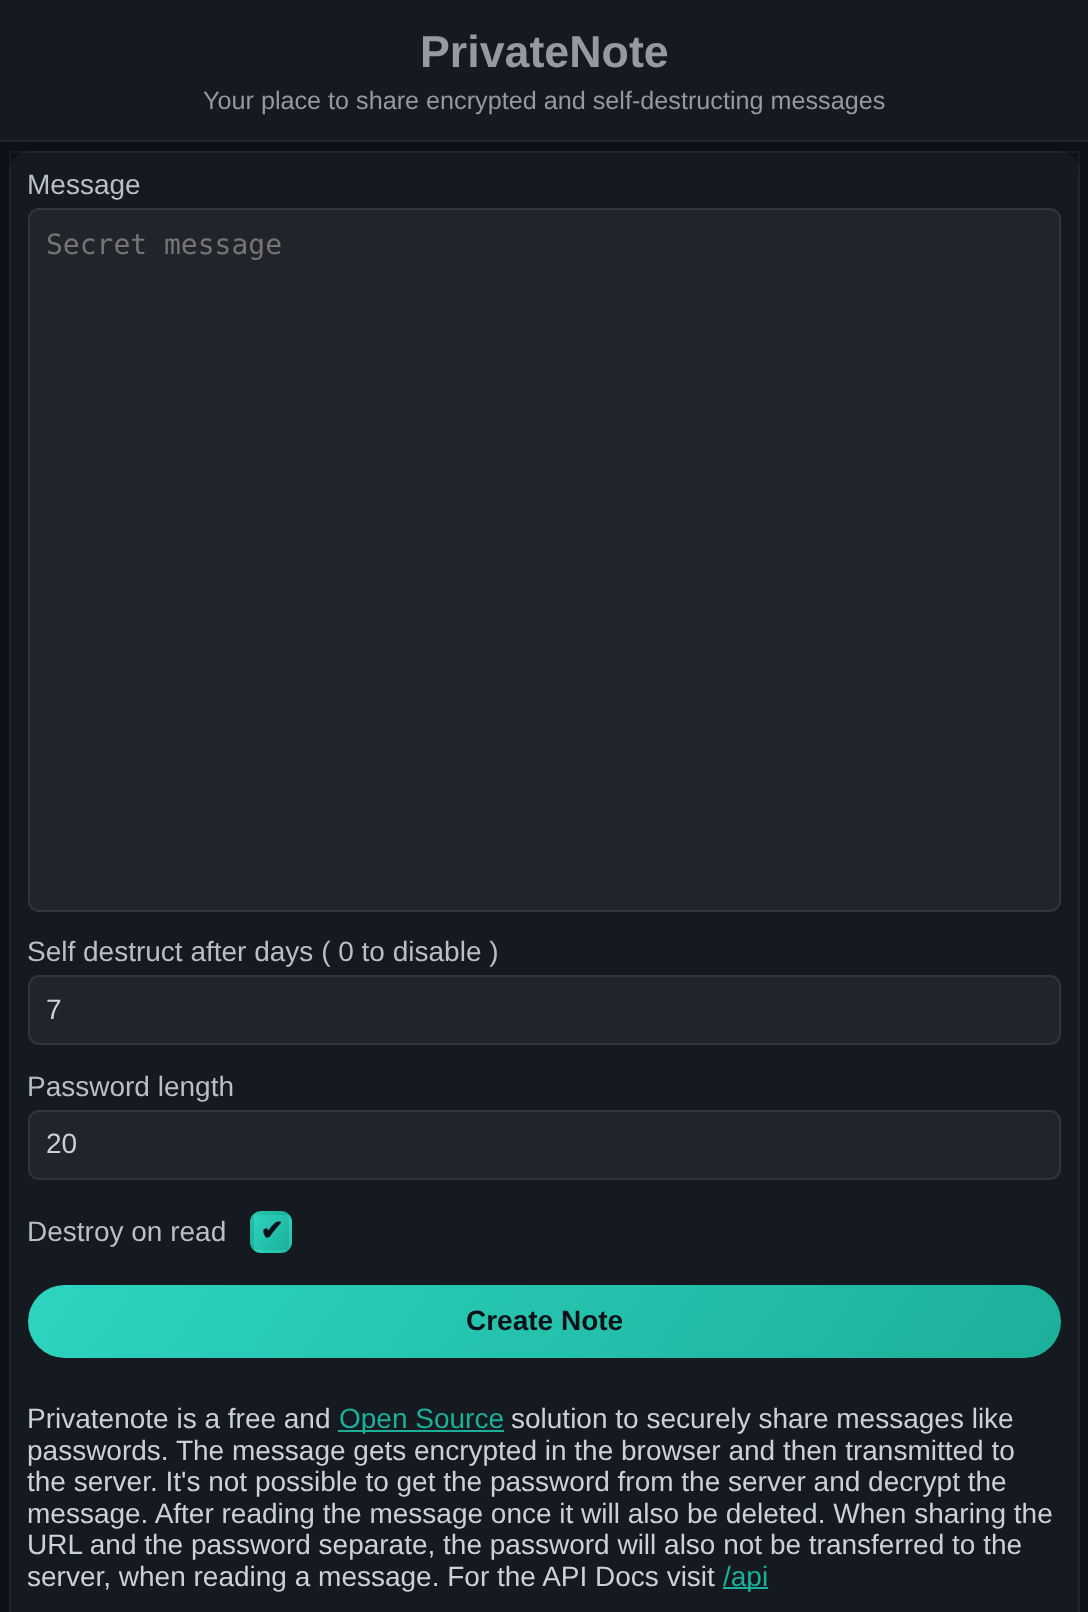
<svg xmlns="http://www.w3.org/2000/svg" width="1088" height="1612">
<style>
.a{font:bold 44.75px Liberation Sans;fill:#939aa2}
.b{font:25.2px Liberation Sans;fill:#939aa2}
.c{font:28px Liberation Sans;fill:#b7bfc7}
.d{font:28px DejaVu Sans Mono;fill:#757575}
.e{font:28px Liberation Sans;fill:#c9d1d9}
.f{font:bold 28px DejaVu Sans;fill:#0d1117}
.g{font:bold 28px Liberation Sans;fill:#0d1117}
.h{font:28px Liberation Sans;fill:#1cb09a}
</style>
<defs>
<clipPath id="clip1"><rect x="250" y="1211" width="42" height="42" rx="11"/></clipPath>
<linearGradient id="g1" gradientUnits="userSpaceOnUse" x1="216" y1="1183" x2="256" y2="1211"><stop offset="0" stop-color="#2dd4bf"/><stop offset="1" stop-color="#1cb09a"/></linearGradient>
<linearGradient id="g2" gradientUnits="userSpaceOnUse" x1="251" y1="1183" x2="291" y2="1211"><stop offset="0" stop-color="#2dd4bf"/><stop offset="1" stop-color="#1cb09a"/></linearGradient>
<linearGradient id="g3" gradientUnits="userSpaceOnUse" x1="286" y1="1183" x2="326" y2="1211"><stop offset="0" stop-color="#2dd4bf"/><stop offset="1" stop-color="#1cb09a"/></linearGradient>
<linearGradient id="g4" gradientUnits="userSpaceOnUse" x1="216" y1="1218" x2="256" y2="1246"><stop offset="0" stop-color="#2dd4bf"/><stop offset="1" stop-color="#1cb09a"/></linearGradient>
<linearGradient id="g5" gradientUnits="userSpaceOnUse" x1="251" y1="1218" x2="291" y2="1246"><stop offset="0" stop-color="#2dd4bf"/><stop offset="1" stop-color="#1cb09a"/></linearGradient>
<linearGradient id="g6" gradientUnits="userSpaceOnUse" x1="286" y1="1218" x2="326" y2="1246"><stop offset="0" stop-color="#2dd4bf"/><stop offset="1" stop-color="#1cb09a"/></linearGradient>
<linearGradient id="g7" gradientUnits="userSpaceOnUse" x1="216" y1="1253" x2="256" y2="1281"><stop offset="0" stop-color="#2dd4bf"/><stop offset="1" stop-color="#1cb09a"/></linearGradient>
<linearGradient id="g8" gradientUnits="userSpaceOnUse" x1="251" y1="1253" x2="291" y2="1281"><stop offset="0" stop-color="#2dd4bf"/><stop offset="1" stop-color="#1cb09a"/></linearGradient>
<linearGradient id="g9" gradientUnits="userSpaceOnUse" x1="181" y1="1067" x2="908" y2="1576"><stop offset="0" stop-color="#2dd4bf"/><stop offset="1" stop-color="#1cb09a"/></linearGradient>
</defs>
<rect width="100%" height="100%" fill="#0d1117"/>
<path fill="#151920" d="M0 0h1088v140H0z"/>
<path fill="#21252b" d="M0 140h1088v2H0z"/>
<rect fill="#151920" x="9" y="151" width="1071" height="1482" rx="21"/>
<path fill="none" stroke="#ffffff0d" stroke-width="2" d="M10 152h1069v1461H10z"/>
<rect fill="#21242b" x="28" y="208" width="1033" height="704" rx="11"/>
<rect fill="none" stroke="#ffffff14" stroke-width="2" x="29" y="209" width="1031" height="702" rx="10"/>
<rect fill="#21252b" x="28" y="975" width="1033" height="70" rx="11"/>
<rect fill="none" stroke="#ffffff14" stroke-width="2" x="29" y="976" width="1031" height="68" rx="10"/>
<rect fill="#21252b" x="28" y="1110" width="1033" height="70" rx="11"/>
<rect fill="none" stroke="#ffffff14" stroke-width="2" x="29" y="1111" width="1031" height="68" rx="10"/>
<g clip-path="url(#clip1)">
<path fill="url(#g1)" d="M250 1213h4v2H250z"/>
<path fill="url(#g2)" d="M254 1211h35v4H254z"/>
<path fill="url(#g3)" d="M289 1211h1v4H289z"/>
<path fill="url(#g4)" d="M250 1215h4v35H250z"/>
</g>
<path fill="url(#g5)" d="M254 1215h35v35H254z"/>
<g clip-path="url(#clip1)">
<path fill="url(#g6)" d="M289 1215h3v35H289z"/>
<path fill="url(#g7)" d="M250 1250h4v1H250z"/>
<path fill="url(#g8)" d="M254 1250h35v3H254z"/>
</g>
<rect fill="url(#g9)" x="28" y="1285" width="1033" height="73" rx="36.5"/>
<path fill="#1cb09a" d="M338 1430h166v2H338z"/>
<path fill="#1cb09a" d="M723 1587h45v2H723z"/>
<text class="a" x="420" y="67">PrivateNote</text>
<text class="b" x="203" y="109">Your place to share encrypted and self-destructing messages</text>
<text class="c" x="27" y="194">Message</text>
<text class="d" x="46" y="254">Secret message</text>
<text class="c" x="27" y="961">Self destruct after days ( 0 to disable )</text>
<text class="e" x="46" y="1019">7</text>
<text class="c" x="27" y="1096">Password length</text>
<text class="e" x="46" y="1153">20</text>
<text class="c" x="27" y="1241">Destroy on read</text>
<text class="f" x="260" y="1240">✔</text>
<text class="g" x="466" y="1330">Create Note</text>
<text class="e" x="27" y="1428">Privatenote is a free and</text>
<text class="h" x="339" y="1428">Open Source</text>
<text class="e" x="511" y="1428">solution to securely share messages like</text>
<text class="e" x="27" y="1460">passwords. The message gets encrypted in the browser and then transmitted to</text>
<text class="e" x="27" y="1491">the server. It's not possible to get the password from the server and decrypt the</text>
<text class="e" x="27" y="1523">message. After reading the message once it will also be deleted. When sharing the</text>
<text class="e" x="27" y="1554">URL and the password separate, the password will also not be transferred to the</text>
<text class="e" x="27" y="1586">server, when reading a message. For the API Docs visit</text>
<text class="h" x="723" y="1586">/api</text>
</svg>
